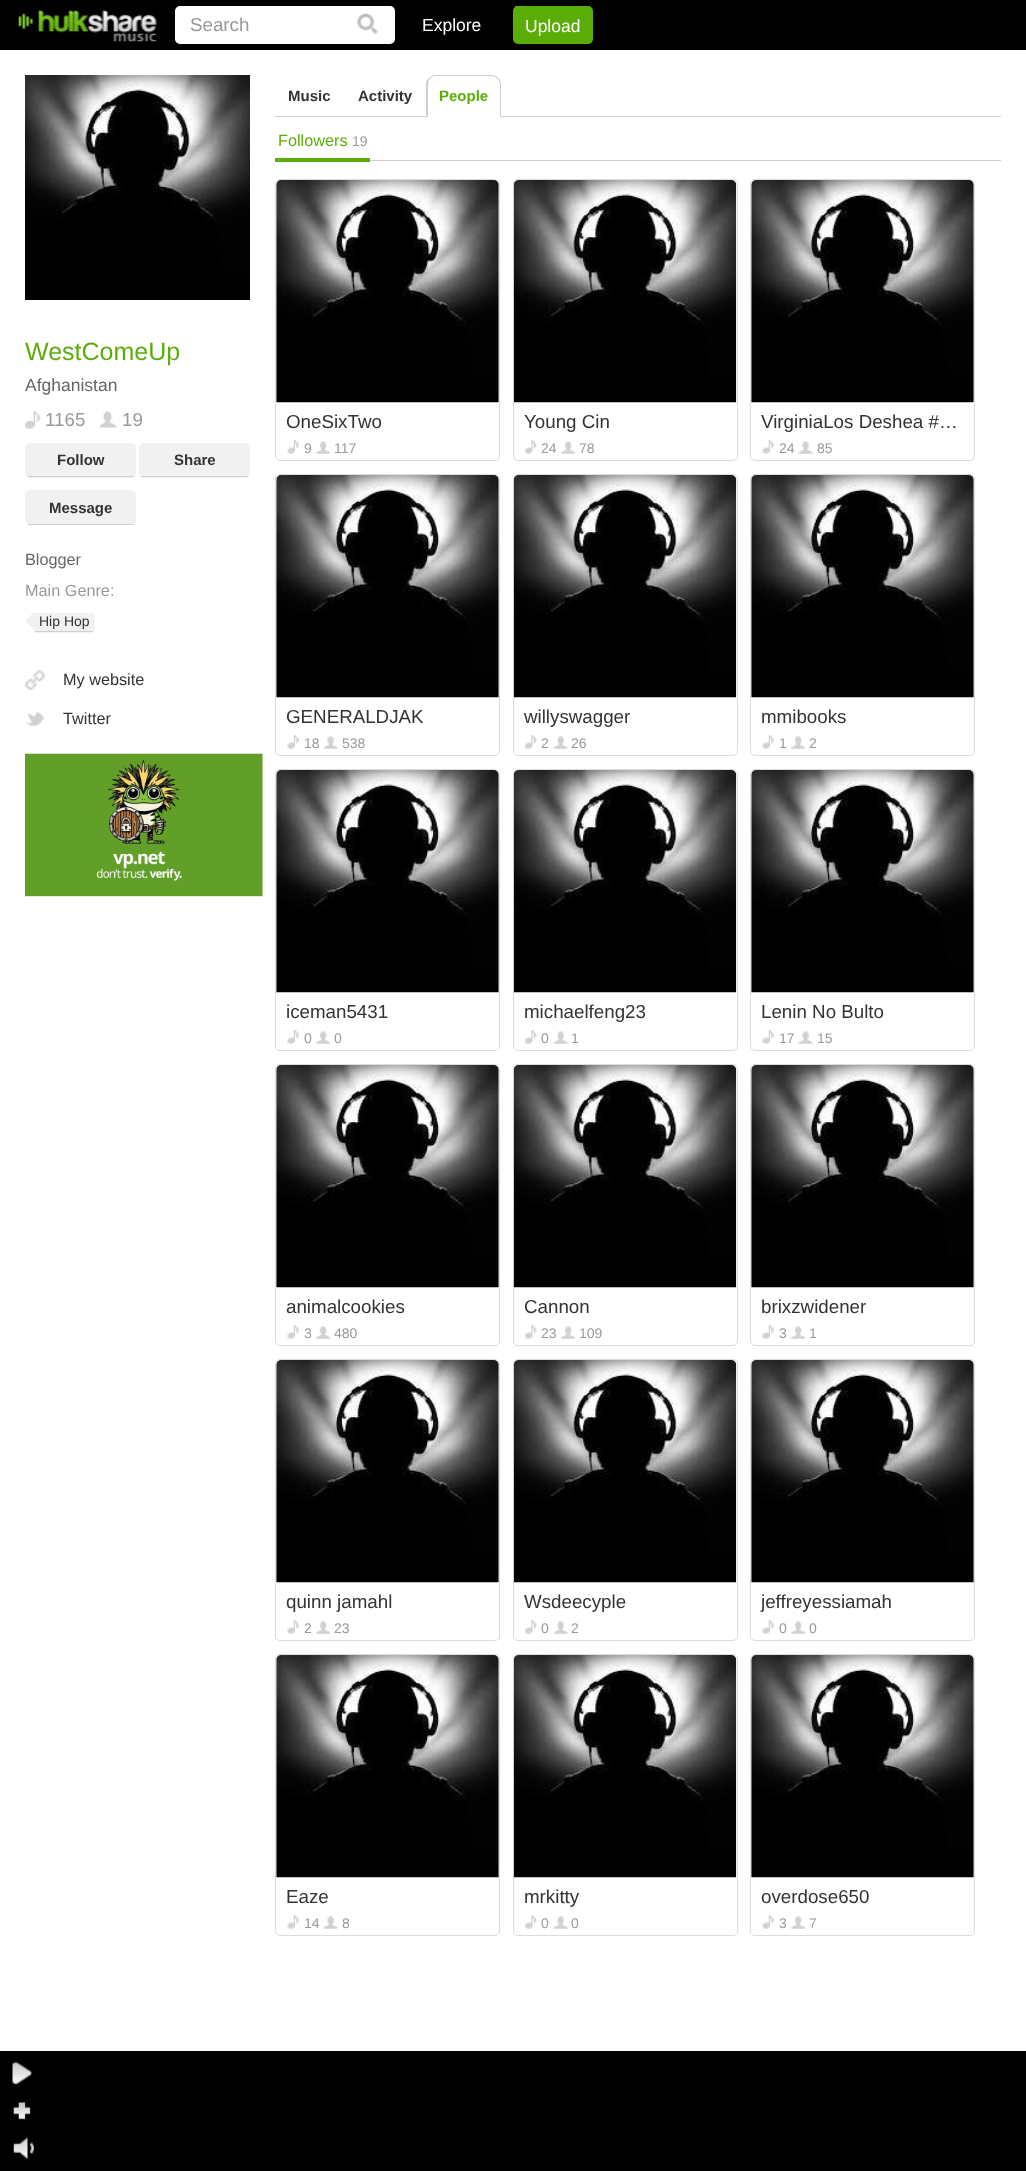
<svg xmlns="http://www.w3.org/2000/svg" width="1026" height="2171">
<style>
.a{font:18.75px Liberation Sans;fill:#999}
.b{font:17.5px Liberation Sans;fill:#fff}
.c{font:25px Liberation Sans;fill:#5aae07}
.d{font:17.5px Liberation Sans;fill:#666}
.e{font:bold 15px Liberation Sans;fill:#333}
.f{font:16.25px Liberation Sans;fill:#666}
.g{font:16.25px Liberation Sans;fill:#999}
.h{font:14px Liberation Sans;fill:#333}
.i{font:16.25px Liberation Sans;fill:#333}
.j{font:bold 15px Liberation Sans;fill:#5aae07}
.k{font:16.25px Liberation Sans;fill:#5aae07}
.l{font:14px Liberation Sans;fill:#999}
.m{font:18.75px Liberation Sans;fill:#333}
</style>
<rect width="100%" height="100%" fill="#fff"/>
<path fill="#000" d="M0 0h1026v50H0z"/>
<image href="1.png" x="18" y="10" width="139" height="32"/>
<rect fill="#fff" stroke="#fff" stroke-width="3" x="176.5" y="7.5" width="217" height="35" rx="3.5"/>
<image href="2.png" x="357" y="13" width="21" height="21"/>
<rect fill="#5aad07" x="513" y="6" width="80" height="38" rx="5"/>
<path fill="#5aad07" d="M515 6h75v1H515z"/>
<image href="3.png" x="25" y="75" width="225" height="225"/>
<image href="4.png" x="25" y="411" width="16" height="18"/>
<image href="5.png" x="100" y="411" width="17" height="17"/>
<rect fill="#f1f1f1" x="25" y="443" width="111" height="35" rx="5"/>
<path fill="#d0d0d0" d="M28 476h106v1H28z"/>
<rect fill="#f1f1f1" x="139" y="443" width="111" height="35" rx="5"/>
<path fill="#d0d0d0" d="M141 476h107v1H141z"/>
<rect fill="#f1f1f1" x="25" y="490" width="111" height="35" rx="5"/>
<path fill="#d0d0d0" d="M28 524h106v1H28z"/>
<path fill="#f1f1f1" d="M35 613h55c3 0 5 2 5 5v10c0 3-2 5-5 5h-55z"/>
<path fill="#d0d0d0" d="M35 631h58v1H35z"/>
<path fill="#f1f1f1" d="M35 611v20l-10-10z"/>
<image href="6.png" x="25" y="670" width="21" height="20"/>
<image href="7.png" x="26" y="711" width="19" height="16"/>
<image href="8.png" x="25" y="753" width="238" height="144"/>
<path fill="#d0d0d0" d="M275 116h726v1H275z"/>
<path fill="#d0d0d0" d="M436 75c-3 0-5 1-7 3l1 1c1-2 3-3 6-3h55c3 0 5 1 6 3l1-1c-1-2-4-3-7-3z"/>
<path fill="#d0d0d0" d="M498.5 78c1.5 1.5 2.5 4 2.5 7v32l-1-1v-31c0-2.5-1-4.5-2.5-6z"/>
<path fill="#fff" d="M501 117l-75 1l2-2h72z"/>
<path fill="#d0d0d0" d="M426 117.5v-35c.5-1.5 1.5-3.5 3-4.5l1 1c-1.5 1.5-2 3.5-2 6v31z"/>
<path fill="#d0d0d0" d="M370 160h631v1H370z"/>
<path fill="#5aae07" d="M275 158h95v4H275z"/>
<rect fill="none" stroke="#dcdcdc" x="275.5" y="179.5" width="224" height="281" rx="4.5"/>
<image href="9.png" x="276" y="180" width="223" height="223"/>
<image href="10.png" x="287" y="440" width="12" height="14"/>
<image href="11.png" x="316" y="441" width="14" height="13"/>
<rect fill="none" stroke="#dcdcdc" x="513.5" y="179.5" width="224" height="281" rx="4.5"/>
<image href="12.png" x="513" y="180" width="224" height="223"/>
<image href="13.png" x="525" y="440" width="12" height="14"/>
<image href="11.png" x="561" y="441" width="14" height="13"/>
<rect fill="none" stroke="#dcdcdc" x="750.5" y="179.5" width="224" height="281" rx="4.5"/>
<image href="9.png" x="751" y="180" width="223" height="223"/>
<image href="10.png" x="762" y="440" width="12" height="14"/>
<image href="14.png" x="798" y="441" width="15" height="13"/>
<rect fill="none" stroke="#dcdcdc" x="275.5" y="474.5" width="224" height="281" rx="4.5"/>
<image href="9.png" x="276" y="475" width="223" height="223"/>
<image href="10.png" x="287" y="735" width="12" height="14"/>
<image href="14.png" x="323" y="736" width="15" height="13"/>
<rect fill="none" stroke="#dcdcdc" x="513.5" y="474.5" width="224" height="281" rx="4.5"/>
<image href="12.png" x="513" y="475" width="224" height="223"/>
<image href="13.png" x="525" y="735" width="12" height="14"/>
<image href="15.png" x="553" y="736" width="15" height="13"/>
<rect fill="none" stroke="#dcdcdc" x="750.5" y="474.5" width="224" height="281" rx="4.5"/>
<image href="9.png" x="751" y="475" width="223" height="223"/>
<image href="10.png" x="762" y="735" width="12" height="14"/>
<image href="11.png" x="791" y="736" width="14" height="13"/>
<rect fill="none" stroke="#dcdcdc" x="275.5" y="769.5" width="224" height="281" rx="4.5"/>
<image href="9.png" x="276" y="770" width="223" height="223"/>
<image href="16.png" x="287" y="1030" width="12" height="14"/>
<image href="17.png" x="316" y="1031" width="14" height="13"/>
<rect fill="none" stroke="#dcdcdc" x="513.5" y="769.5" width="224" height="281" rx="4.5"/>
<image href="12.png" x="513" y="770" width="224" height="223"/>
<image href="18.png" x="525" y="1030" width="12" height="14"/>
<image href="19.png" x="553" y="1031" width="15" height="13"/>
<rect fill="none" stroke="#dcdcdc" x="750.5" y="769.5" width="224" height="281" rx="4.5"/>
<image href="9.png" x="751" y="770" width="223" height="223"/>
<image href="16.png" x="762" y="1030" width="12" height="14"/>
<image href="20.png" x="798" y="1031" width="15" height="13"/>
<rect fill="none" stroke="#dcdcdc" x="275.5" y="1064.5" width="224" height="281" rx="4.5"/>
<image href="9.png" x="276" y="1065" width="223" height="223"/>
<image href="10.png" x="287" y="1325" width="12" height="14"/>
<image href="11.png" x="316" y="1326" width="14" height="13"/>
<rect fill="none" stroke="#dcdcdc" x="513.5" y="1064.5" width="224" height="281" rx="4.5"/>
<image href="12.png" x="513" y="1065" width="224" height="223"/>
<image href="13.png" x="525" y="1325" width="12" height="14"/>
<image href="11.png" x="561" y="1326" width="14" height="13"/>
<rect fill="none" stroke="#dcdcdc" x="750.5" y="1064.5" width="224" height="281" rx="4.5"/>
<image href="9.png" x="751" y="1065" width="223" height="223"/>
<image href="10.png" x="762" y="1325" width="12" height="14"/>
<image href="11.png" x="791" y="1326" width="14" height="13"/>
<rect fill="none" stroke="#dcdcdc" x="275.5" y="1359.5" width="224" height="281" rx="4.5"/>
<image href="9.png" x="276" y="1360" width="223" height="223"/>
<image href="10.png" x="287" y="1620" width="12" height="14"/>
<image href="11.png" x="316" y="1621" width="14" height="13"/>
<rect fill="none" stroke="#dcdcdc" x="513.5" y="1359.5" width="224" height="281" rx="4.5"/>
<image href="12.png" x="513" y="1360" width="224" height="223"/>
<image href="13.png" x="525" y="1620" width="12" height="14"/>
<image href="15.png" x="553" y="1621" width="15" height="13"/>
<rect fill="none" stroke="#dcdcdc" x="750.5" y="1359.5" width="224" height="281" rx="4.5"/>
<image href="9.png" x="751" y="1360" width="223" height="223"/>
<image href="10.png" x="762" y="1620" width="12" height="14"/>
<image href="11.png" x="791" y="1621" width="14" height="13"/>
<rect fill="none" stroke="#dcdcdc" x="275.5" y="1654.5" width="224" height="281" rx="4.5"/>
<image href="9.png" x="276" y="1655" width="223" height="223"/>
<image href="10.png" x="287" y="1915" width="12" height="14"/>
<image href="14.png" x="323" y="1916" width="15" height="13"/>
<rect fill="none" stroke="#dcdcdc" x="513.5" y="1654.5" width="224" height="281" rx="4.5"/>
<image href="12.png" x="513" y="1655" width="224" height="223"/>
<image href="13.png" x="525" y="1915" width="12" height="14"/>
<image href="15.png" x="553" y="1916" width="15" height="13"/>
<rect fill="none" stroke="#dcdcdc" x="750.5" y="1654.5" width="224" height="281" rx="4.5"/>
<image href="9.png" x="751" y="1655" width="223" height="223"/>
<image href="10.png" x="762" y="1915" width="12" height="14"/>
<image href="11.png" x="791" y="1916" width="14" height="13"/>
<path fill="#000" d="M0 2051h1026v120H0z"/>
<image href="21.png" x="12" y="2061" width="20" height="24"/>
<image href="22.png" x="13" y="2101" width="18" height="19"/>
<image href="23.png" x="13" y="2136" width="21" height="24"/>
<text class="a" x="190" y="31">Search</text>
<text class="b" x="422" y="31">Explore</text>
<text class="b" x="525" y="32">Upload</text>
<text class="c" x="25" y="360">WestComeUp</text>
<text class="d" x="25" y="391">Afghanistan</text>
<text class="a" x="45" y="426">1165</text>
<text class="a" x="122" y="426">19</text>
<text class="e" x="57" y="465">Follow</text>
<text class="e" x="174" y="465">Share</text>
<text class="e" x="49" y="513">Message</text>
<text class="f" x="25" y="565">Blogger</text>
<text class="g" x="25" y="596">Main Genre:</text>
<text class="h" x="39" y="626">Hip Hop</text>
<text class="i" x="63" y="685">My website</text>
<text class="i" x="63" y="724">Twitter</text>
<text class="e" x="288" y="101">Music</text>
<text class="e" x="358" y="101">Activity</text>
<text class="j" x="439" y="101">People</text>
<text class="k" x="278" y="146">Followers</text>
<text class="l" x="352" y="146">19</text>
<text class="m" x="286" y="428">OneSixTwo</text>
<text class="l" x="304" y="453">9</text>
<text class="l" x="334" y="453">117</text>
<text class="m" x="524" y="428">Young Cin</text>
<text class="l" x="541" y="453">24</text>
<text class="l" x="579" y="453">78</text>
<text class="m" x="761" y="428">VirginiaLos Deshea #…</text>
<text class="l" x="779" y="453">24</text>
<text class="l" x="817" y="453">85</text>
<text class="m" x="286" y="723">GENERALDJAK</text>
<text class="l" x="304" y="748">18</text>
<text class="l" x="342" y="748">538</text>
<text class="m" x="524" y="723">willyswagger</text>
<text class="l" x="541" y="748">2</text>
<text class="l" x="571" y="748">26</text>
<text class="m" x="761" y="723">mmibooks</text>
<text class="l" x="779" y="748">1</text>
<text class="l" x="809" y="748">2</text>
<text class="m" x="286" y="1018">iceman5431</text>
<text class="l" x="304" y="1043">0</text>
<text class="l" x="334" y="1043">0</text>
<text class="m" x="524" y="1018">michaelfeng23</text>
<text class="l" x="541" y="1043">0</text>
<text class="l" x="571" y="1043">1</text>
<text class="m" x="761" y="1018">Lenin No Bulto</text>
<text class="l" x="779" y="1043">17</text>
<text class="l" x="817" y="1043">15</text>
<text class="m" x="286" y="1313">animalcookies</text>
<text class="l" x="304" y="1338">3</text>
<text class="l" x="334" y="1338">480</text>
<text class="m" x="524" y="1313">Cannon</text>
<text class="l" x="541" y="1338">23</text>
<text class="l" x="579" y="1338">109</text>
<text class="m" x="761" y="1313">brixzwidener</text>
<text class="l" x="779" y="1338">3</text>
<text class="l" x="809" y="1338">1</text>
<text class="m" x="286" y="1608">quinn jamahl</text>
<text class="l" x="304" y="1633">2</text>
<text class="l" x="334" y="1633">23</text>
<text class="m" x="524" y="1608">Wsdeecyple</text>
<text class="l" x="541" y="1633">0</text>
<text class="l" x="571" y="1633">2</text>
<text class="m" x="761" y="1608">jeffreyessiamah</text>
<text class="l" x="779" y="1633">0</text>
<text class="l" x="809" y="1633">0</text>
<text class="m" x="286" y="1903">Eaze</text>
<text class="l" x="304" y="1928">14</text>
<text class="l" x="342" y="1928">8</text>
<text class="m" x="524" y="1903">mrkitty</text>
<text class="l" x="541" y="1928">0</text>
<text class="l" x="571" y="1928">0</text>
<text class="m" x="761" y="1903">overdose650</text>
<text class="l" x="779" y="1928">3</text>
<text class="l" x="809" y="1928">7</text>
</svg>
